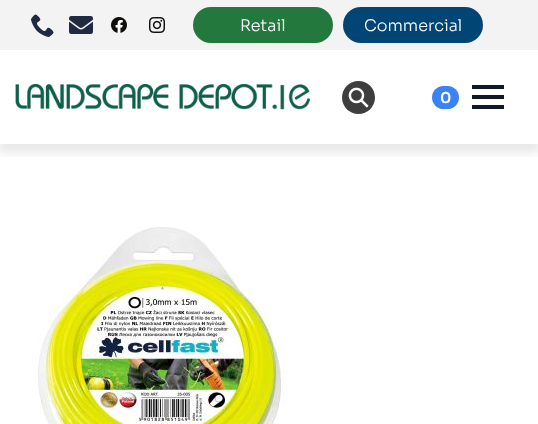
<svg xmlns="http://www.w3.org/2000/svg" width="538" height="424">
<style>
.a{font:300 16px Sora;fill:#fff}
.b{font:600 15px Sora;fill:#fff}
</style>
<defs>
<clipPath id="clip1"><path d="M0 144h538v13H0z"/></clipPath>
</defs>
<rect width="100%" height="100%" fill="#fff"/>
<path fill="#f3f3f3" d="M0 0h538v50H0z"/>
<image href="1.png" x="31" y="14" width="23" height="23"/>
<image href="2.png" x="69" y="16" width="24" height="18"/>
<image href="3.png" x="111" y="17" width="16" height="16"/>
<image href="4.png" x="149" y="17" width="16" height="16"/>
<rect fill="#23783d" x="193" y="7" width="140" height="36" rx="18"/>
<rect fill="#014575" x="343" y="7" width="140" height="36" rx="18"/>
<g clip-path="url(#clip1)">
<path fill="#00000017" filter="blur(5px)" d="M-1 57h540v96H-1z"/>
</g>
<image href="5.png" x="15" y="84" width="295" height="26"/>
<circle fill="#3e3e3e" cx="358.5" cy="97.5" r="16.5"/>
<image href="6.png" x="348" y="87" width="21" height="21"/>
<rect fill="#3b82f6" x="432" y="86" width="27" height="23" rx="11.5"/>
<path fill="#111827" d="M472 95h32v4H472z"/>
<path fill="#111827" d="M472 85h32v4H472z"/>
<path fill="#111827" d="M472 105h32v4H472z"/>
<image href="7.png" x="32" y="227" width="255" height="197"/>
<text class="a" x="240" y="31">Retail</text>
<text class="a" x="364" y="31">Commercial</text>
<text class="b" x="440" y="103">0</text>
</svg>
